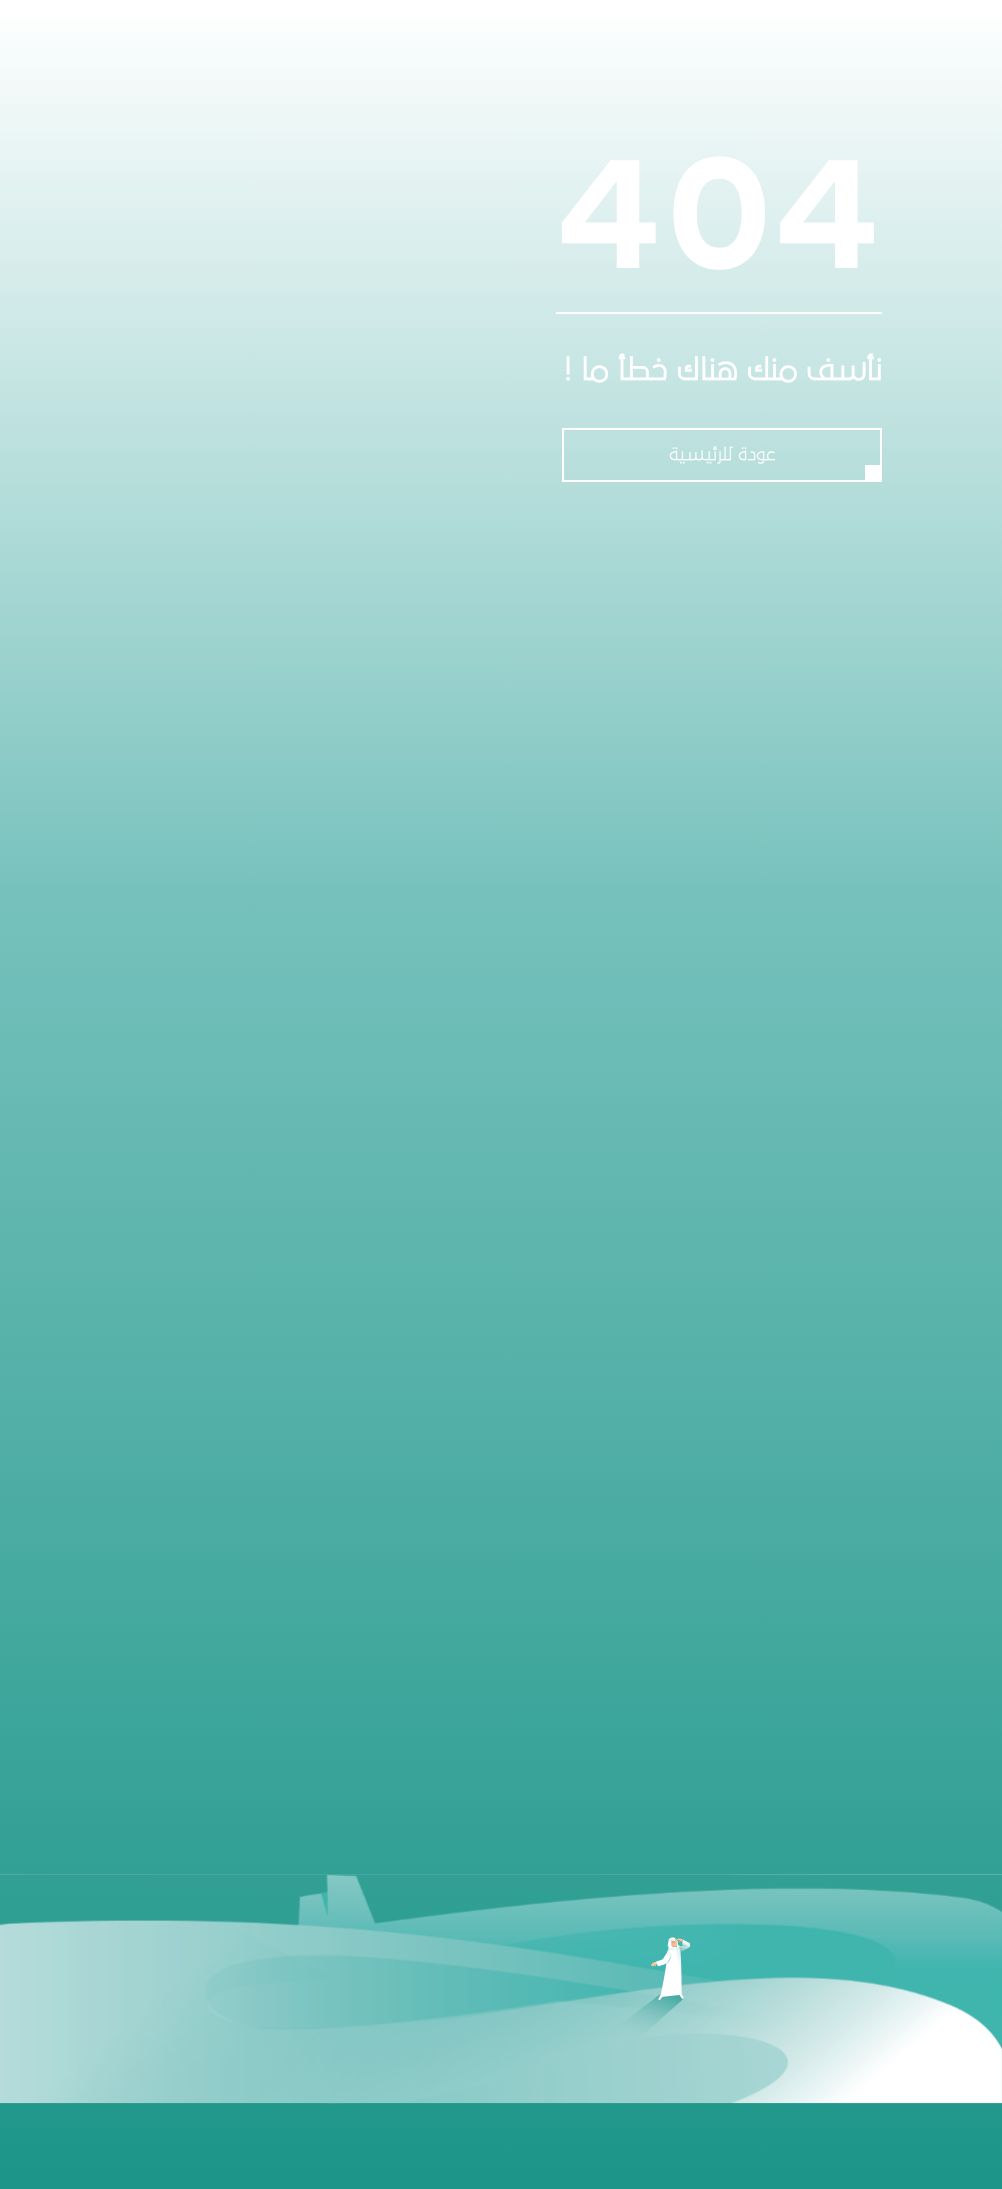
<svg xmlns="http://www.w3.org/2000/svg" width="1002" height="2189">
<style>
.a{font:bold 160px '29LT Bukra';fill:#fff}
.b{font:bold 28px '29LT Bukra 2';direction:rtl;fill:#fff}
.c{font:16px '29LT Bukra';direction:rtl;fill:#fff}
</style>
<defs>
<linearGradient id="g1" gradientUnits="userSpaceOnUse" x1="501" y1="2189" x2="501" y2="0"><stop offset="0" stop-color="#1c9588"/><stop offset="0.59" stop-color="#76c1bc"/><stop offset="1" stop-color="#fff"/></linearGradient>
</defs>
<rect width="100%" height="100%" fill="#fff"/>
<path fill="url(#g1)" d="M0 16h1002v2173H0z"/>
<path fill="#fff" d="M556 312h326v2H556z"/>
<path fill="none" stroke="#fff" stroke-width="2" d="M563 429h318v52H563z"/>
<path fill="#fff" d="M865 465h15v15H865z"/>
<image href="1.png" x="0" y="1874" width="1002" height="230"/>
<text class="a" x="556" y="268">404</text>
<text class="b" x="882" y="380">نأسف منك هناك خطأ ما !</text>
<text class="c" x="776" y="460">عودة للرئيسية</text>
</svg>
